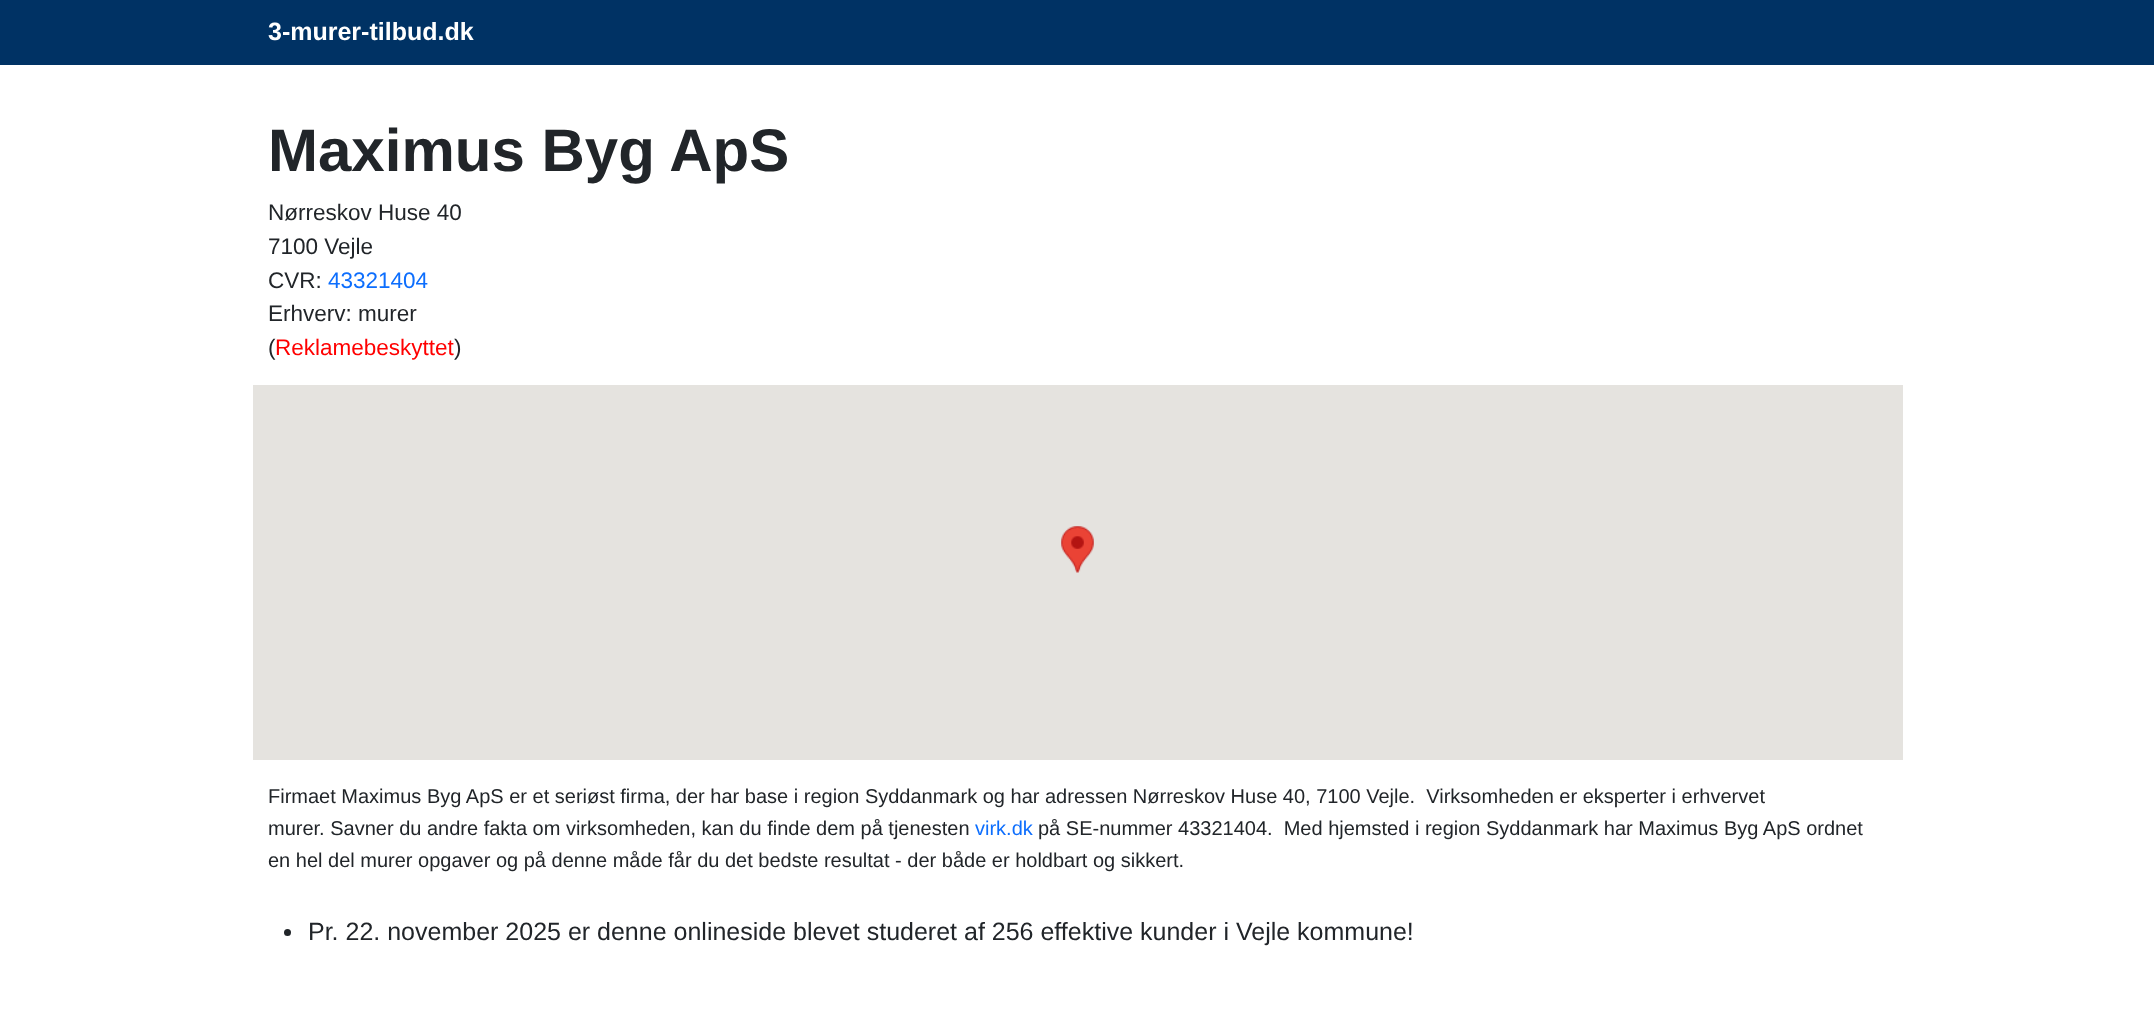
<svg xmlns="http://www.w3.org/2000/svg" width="2154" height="1025">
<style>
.a{font:bold 25px Liberation Sans;fill:#fff}
.b{font:bold 60px Liberation Sans;fill:#212529}
.c{font:22.5px Liberation Sans;fill:#212529}
.d{font:22.5px Liberation Sans;fill:#0d6efd}
.e{font:22.5px Liberation Sans;fill:#f00}
.f{font:20px Liberation Sans;fill:#212529}
.g{font:20px Liberation Sans;fill:#0d6efd}
.h{font:25px Liberation Sans;fill:#212529}
</style>
<rect width="100%" height="100%" fill="#fff"/>
<path fill="#003264" d="M0 0h2154v65H0z"/>
<path fill="#e5e3df" d="M253 385h1650v375H253z"/>
<image href="1.png" x="1061" y="526" width="33" height="47"/>
<circle fill="#212529" cx="287.5" cy="932.5" r="3.5"/>
<text class="a" x="268" y="40">3-murer-tilbud.dk</text>
<text class="b" x="268" y="171">Maximus Byg ApS</text>
<text class="c" x="268" y="220">Nørreskov Huse 40</text>
<text class="c" x="268" y="254">7100 Vejle</text>
<text class="c" x="268" y="288">CVR:</text>
<text class="d" x="328" y="288">43321404</text>
<text class="c" x="268" y="321">Erhverv: murer</text>
<text class="c" x="268" y="355">(</text>
<text class="e" x="275" y="355">Reklamebeskyttet</text>
<text class="c" x="454" y="355">)</text>
<text class="f" xml:space="preserve" x="268" y="803">Firmaet Maximus Byg ApS er et seriøst firma, der har base i region Syddanmark og har adressen Nørreskov Huse 40, 7100 Vejle.  Virksomheden er eksperter i erhvervet</text>
<text class="f" x="268" y="835">murer. Savner du andre fakta om virksomheden, kan du finde dem på tjenesten</text>
<text class="g" x="975" y="835">virk.dk</text>
<text class="f" xml:space="preserve" x="1038" y="835">på SE-nummer 43321404.  Med hjemsted i region Syddanmark har Maximus Byg ApS ordnet</text>
<text class="f" x="268" y="867">en hel del murer opgaver og på denne måde får du det bedste resultat - der både er holdbart og sikkert.</text>
<text class="h" x="308" y="940">Pr. 22. november 2025 er denne onlineside blevet studeret af 256 effektive kunder i Vejle kommune!</text>
</svg>
